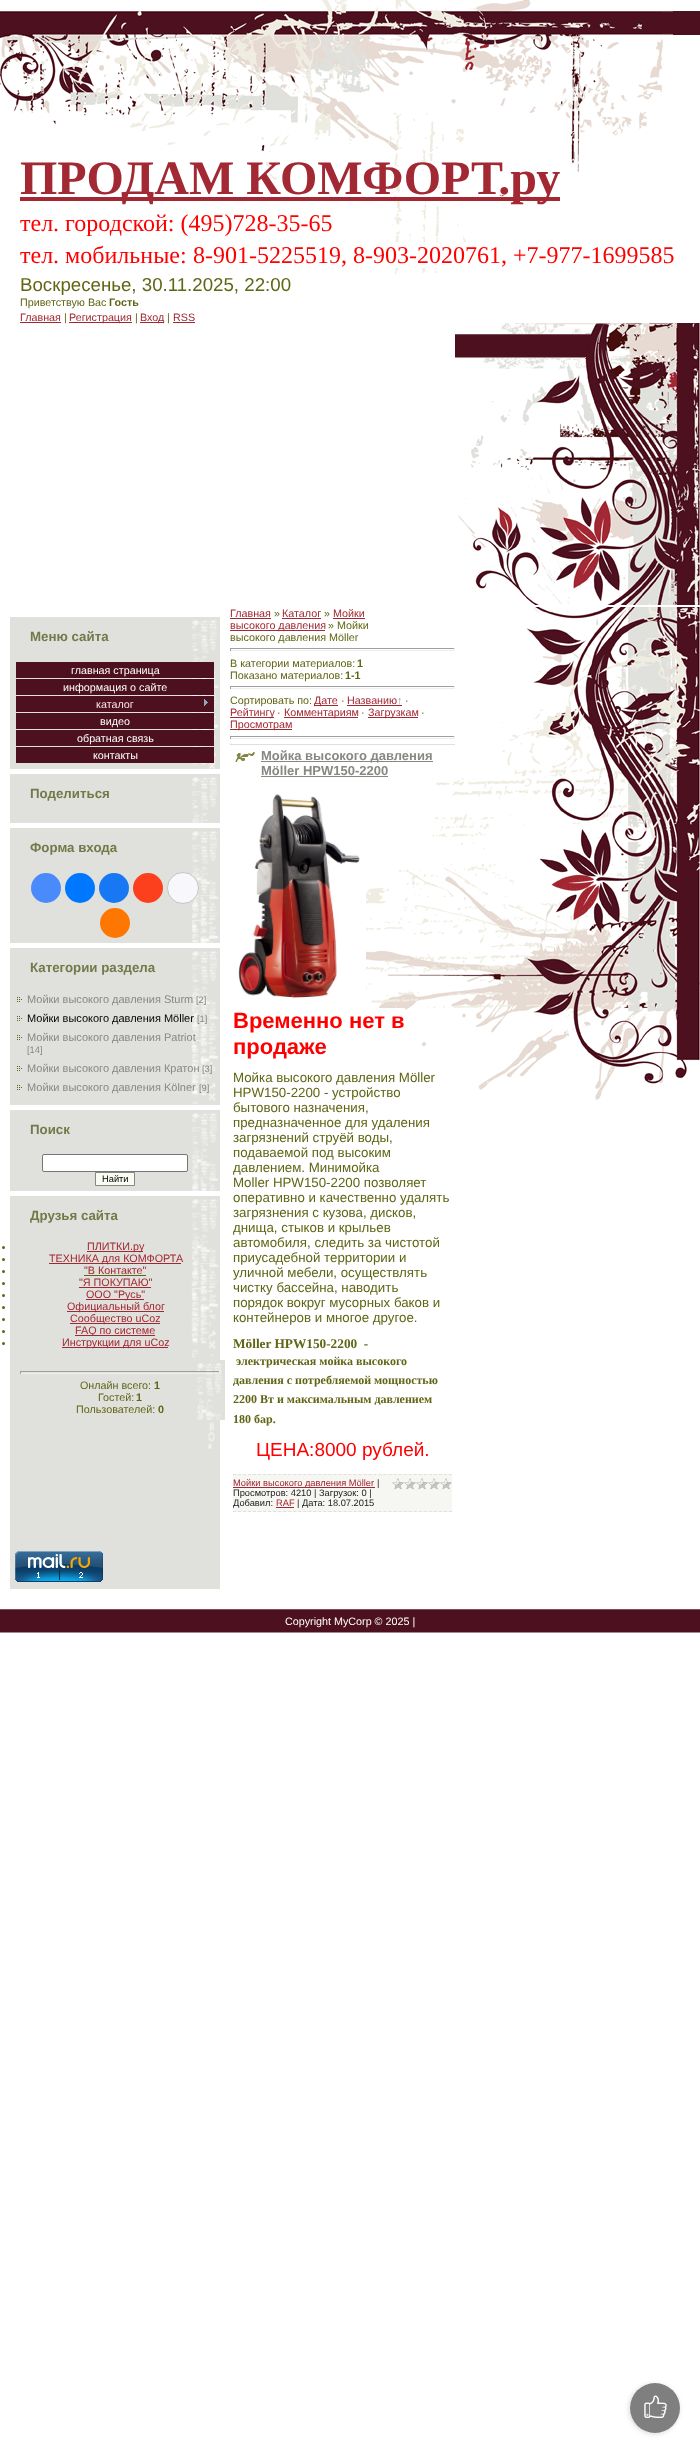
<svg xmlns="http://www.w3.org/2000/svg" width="700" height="2458">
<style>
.a{font:bold 48px Liberation Serif;fill:#a22833}
.b{font:24px Liberation Serif;fill:#f00}
.c{font:18.7px Liberation Sans;fill:#606615}
.d{font:10.75px Liberation Sans;fill:#606615}
.e{font:bold 10.75px Liberation Sans;fill:#606615}
.f{font:10.75px Liberation Sans;fill:#a22833}
.g{font:bold 13.3px Liberation Sans;fill:#717b4a}
.h{font:10.75px Liberation Sans;fill:#fff}
.i{font:10.75px Liberation Sans;fill:#ffe0e6}
.j{font:11px Liberation Sans;fill:#868882}
.k{font:9.3px Liberation Sans;fill:#868882}
.l{font:11px Liberation Sans;fill:#000}
.m{font:9.3px Liberation Sans;fill:#000}
.n{font:10.75px Liberation Sans;fill:#a0a0a0}
.o{font:bold 13px Liberation Sans;fill:#868882}
.p{font:bold 22px Liberation Sans;fill:#f00}
.q{font:13.3px Liberation Sans;fill:#606615}
.r{font:bold 13.3px Liberation Serif;fill:#606615}
.s{font:bold 12px Liberation Serif;fill:#606615}
.t{font:19px Liberation Sans;fill:#f00}
.u{font:9.3px Liberation Sans;fill:#a22833}
.v{font:9.3px Liberation Sans;fill:#1a1a1a}
</style>
<defs>
<clipPath id="clip1"><path d="M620 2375h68v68h-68zm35 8c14 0 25 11 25 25c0 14-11 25-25 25c-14 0-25-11-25-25c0-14 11-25 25-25z" clip-rule="evenodd"/></clipPath>
</defs>
<rect width="100%" height="100%" fill="#fff"/>
<path fill="#4d101f" d="M234 11h466v24H234z"/>
<image href="1.png" x="0" y="0" width="673" height="275"/>
<path fill="#a22833" d="M20 197h540v4H20z"/>
<path fill="#fff" d="M394 242h75v26H394z"/>
<path fill="#a22833" d="M20 322h41v1H20z"/>
<path fill="#a22833" d="M69 322h63v1H69z"/>
<path fill="#a22833" d="M140 322h24v1H140z"/>
<path fill="#a22833" d="M173 322h22v1H173z"/>
<image href="2.png" x="455" y="323" width="245" height="282"/>
<image href="3.png" x="346" y="781" width="109" height="266"/>
<path fill="#e0e1dc" d="M10 617h210v152H10z"/>
<image href="4.png" x="191" y="620" width="28" height="149"/>
<path fill="#4d101f" d="M16 662h198v16H16z"/>
<path fill="#4d101f" d="M16 679h198v16H16z"/>
<path fill="#4d101f" d="M16 696h198v16H16z"/>
<image href="5.png" x="204" y="699" width="4" height="7"/>
<path fill="#4d101f" d="M16 713h198v16H16z"/>
<path fill="#4d101f" d="M16 730h198v16H16z"/>
<path fill="#4d101f" d="M16 747h198v16H16z"/>
<path fill="#e0e1dc" d="M10 774h210v49H10z"/>
<image href="6.png" x="192" y="777" width="26" height="46"/>
<g clip-path="url(#clip1)">
<rect fill="#00000026" filter="blur(2.5px)" x="629" y="2384" width="50" height="50" rx="25"/>
</g>
<circle fill="#00000080" cx="655" cy="2408" r="25"/>
<image href="7.png" x="644" y="2395" width="23" height="23"/>
<path fill="#e0e1dc" d="M10 828h210v115H10z"/>
<image href="8.png" x="192" y="831" width="27" height="112"/>
<circle fill="#498bfa" cx="46" cy="888" r="15"/>
<circle fill="#07f" cx="80" cy="888" r="15"/>
<circle fill="#1877f2" cx="114" cy="888" r="15"/>
<circle fill="#fc3f1d" cx="148" cy="888" r="15"/>
<circle fill="#f8f8fc" stroke="#c4c4c4" cx="183" cy="888" r="15.5"/>
<circle fill="#f70" cx="115" cy="923" r="15"/>
<path fill="#e0e1dc" d="M10 948h210v157H10z"/>
<image href="9.png" x="191" y="951" width="28" height="154"/>
<image href="10.png" x="17" y="997" width="5" height="5"/>
<image href="10.png" x="17" y="1016" width="5" height="5"/>
<image href="10.png" x="17" y="1035" width="5" height="5"/>
<image href="10.png" x="17" y="1066" width="5" height="5"/>
<image href="10.png" x="17" y="1085" width="5" height="5"/>
<path fill="#e0e1dc" d="M10 1110h210v81H10z"/>
<image href="11.png" x="192" y="1113" width="26" height="78"/>
<rect fill="#fff" stroke="#767676" x="42.5" y="1154.5" width="145" height="17" rx="1.5"/>
<path fill="#f8fbf1" stroke="#868882" d="M95.5 1172.5h39v13H95.5z"/>
<path fill="#e0e1dc" d="M10 1196h210v393H10z"/>
<image href="12.png" x="191" y="1199" width="28" height="250"/>
<circle fill="#606615" cx="3.5" cy="1247.5" r="1.5"/>
<path fill="#a22833" d="M87 1251h56v1H87z"/>
<circle fill="#606615" cx="3.5" cy="1259.5" r="1.5"/>
<path fill="#a22833" d="M49 1263h132v1H49z"/>
<circle fill="#606615" cx="3.5" cy="1271.5" r="1.5"/>
<path fill="#606615" d="M84 1275h62v1H84z"/>
<circle fill="#606615" cx="3.5" cy="1283.5" r="1.5"/>
<path fill="#a22833" d="M79 1287h72v1H79z"/>
<circle fill="#606615" cx="3.5" cy="1295.5" r="1.5"/>
<path fill="#a22833" d="M86 1299h58v1H86z"/>
<circle fill="#606615" cx="3.5" cy="1307.5" r="1.5"/>
<path fill="#a22833" d="M67 1311h97v1H67z"/>
<circle fill="#606615" cx="3.5" cy="1319.5" r="1.5"/>
<path fill="#a22833" d="M70 1323h90v1H70z"/>
<circle fill="#606615" cx="3.5" cy="1331.5" r="1.5"/>
<path fill="#a22833" d="M75 1335h80v1H75z"/>
<circle fill="#606615" cx="3.5" cy="1343.5" r="1.5"/>
<path fill="#a22833" d="M62 1347h106v1H62z"/>
<path fill="#e0e1dc" d="M191 1360h34v60H191z"/>
<image href="13.png" x="197" y="1363" width="25" height="57"/>
<path fill="#9f9f9f" d="M20 1371h200v1H20z"/>
<path fill="#eee" d="M219 1371h1v3H219z"/>
<path fill="#eee" d="M20 1373h200v1H20z"/>
<path fill="#9f9f9f" d="M20 1371h1v3H20z"/>
<image href="14.png" x="15" y="1551" width="88" height="31"/>
<path fill="#a22833" d="M230 618h41v1H230z"/>
<path fill="#a22833" d="M282 618h39v1H282z"/>
<path fill="#a22833" d="M333 618h32v1H333z"/>
<path fill="#a22833" d="M230 630h95v1H230z"/>
<path fill="#9f9f9f" d="M230 648h225v1H230z"/>
<path fill="#eee" d="M454 648h1v3H454z"/>
<path fill="#eee" d="M230 650h225v1H230z"/>
<path fill="#9f9f9f" d="M230 648h1v3H230z"/>
<path fill="#9f9f9f" d="M230 686h225v1H230z"/>
<path fill="#eee" d="M454 686h1v3H454z"/>
<path fill="#eee" d="M230 688h225v1H230z"/>
<path fill="#9f9f9f" d="M230 686h1v3H230z"/>
<path fill="#a22833" d="M314 705h24v1H314z"/>
<path fill="#a22833" d="M347 705h55v1H347z"/>
<path fill="#a22833" d="M230 717h44v1H230z"/>
<path fill="#a22833" d="M284 717h74v1H284z"/>
<path fill="#a22833" d="M368 717h50v1H368z"/>
<path fill="#a22833" d="M230 729h62v1H230z"/>
<path fill="#9f9f9f" d="M230 736h225v1H230z"/>
<path fill="#eee" d="M454 736h1v3H454z"/>
<path fill="#eee" d="M230 738h225v1H230z"/>
<path fill="#9f9f9f" d="M230 736h1v3H230z"/>
<path fill="#e0e1dc" d="M230 744h225v1H230z"/>
<image href="15.png" x="235" y="752" width="20" height="10"/>
<path fill="#868882" d="M261 761h172v1H261z"/>
<path fill="#868882" d="M261 776h127v1H261z"/>
<image href="16.png" x="238" y="794" width="128" height="205"/>
<path fill="#fff" d="M378 1008h27v6H378z"/>
<path fill="#f6f7f2" d="M233 1474h219v38H233z"/>
<path fill="none" stroke="#e0e1dc" stroke-dasharray="3 2.02" d="M233 1474.5h219"/>
<path fill="none" stroke="#e0e1dc" stroke-dasharray="3 2.02" d="M233 1511.5h219"/>
<path fill="#a22833" d="M233 1487h142v1H233z"/>
<image href="17.png" x="392" y="1478" width="60" height="12"/>
<path fill="#a22833" d="M276 1507h18v1H276z"/>
<image href="18.png" x="455" y="607" width="245" height="493"/>
<path fill="#4d101f" d="M0 1610h700v22H0z"/>
<path fill="#7a4e58" d="M0 1609h700v1H0z"/>
<path fill="#a6888f" d="M0 1632h700v1H0z"/>
<text class="a" x="20" y="194">ПРОДАМ КОМФОРТ.ру</text>
<text class="b" x="20" y="231">тел. городской: (495)728-35-65</text>
<text class="b" x="20" y="263">тел. мобильные:</text>
<text class="b" x="193" y="263">8-901-5225519, 8-903-2020761, +7-977-1699585</text>
<text class="c" x="20" y="291">Воскресенье, 30.11.2025, 22:00</text>
<text class="d" x="20" y="306">Приветствую Вас</text>
<text class="e" x="109" y="306">Гость</text>
<text class="f" x="20" y="321">Главная</text>
<text class="d" x="64" y="321">|</text>
<text class="f" x="69" y="321">Регистрация</text>
<text class="d" x="135" y="321">|</text>
<text class="f" x="140" y="321">Вход</text>
<text class="d" x="167" y="321">|</text>
<text class="f" x="173" y="321">RSS</text>
<text class="g" x="30" y="641">Меню сайта</text>
<text class="h" x="71" y="674">главная страница</text>
<text class="h" x="63" y="691">информация о сайте</text>
<text class="i" x="96" y="708">каталог</text>
<text class="h" x="100" y="725">видео</text>
<text class="h" x="77" y="742">обратная связь</text>
<text class="h" x="93" y="759">контакты</text>
<text class="g" x="30" y="798">Поделиться</text>
<text class="g" x="30" y="852">Форма входа</text>
<text class="g" x="30" y="972">Категории раздела</text>
<text class="j" x="27" y="1003">Мойки высокого давления Sturm</text>
<text class="k" x="196" y="1003">[2]</text>
<text class="l" x="27" y="1022">Мойки высокого давления Möller</text>
<text class="k" x="197" y="1022">[1]</text>
<text class="j" x="27" y="1041">Мойки высокого давления Patriot</text>
<text class="k" x="27" y="1053">[14]</text>
<text class="j" x="27" y="1072">Мойки высокого давления Кратон</text>
<text class="k" x="202" y="1072">[3]</text>
<text class="j" x="27" y="1091">Мойки высокого давления Kölner</text>
<text class="k" x="199" y="1091">[9]</text>
<text class="g" x="30" y="1134">Поиск</text>
<text class="m" x="102" y="1182">Найти</text>
<text class="g" x="30" y="1220">Друзья сайта</text>
<text class="f" x="87" y="1250">ПЛИТКИ.ру</text>
<text class="f" x="49" y="1262">ТЕХНИКА для КОМФОРТА</text>
<text class="f" x="84" y="1274">"В Контакте"</text>
<text class="f" x="79" y="1286">"Я ПОКУПАЮ"</text>
<text class="f" x="86" y="1298">ООО "Русь"</text>
<text class="f" x="67" y="1310">Официальный блог</text>
<text class="f" x="70" y="1322">Сообщество uCoz</text>
<text class="f" x="75" y="1334">FAQ по системе</text>
<text class="f" x="62" y="1346">Инструкции для uCoz</text>
<text class="d" x="80" y="1389">Онлайн всего:</text>
<text class="e" x="154" y="1389">1</text>
<text class="d" x="98" y="1401">Гостей:</text>
<text class="e" x="136" y="1401">1</text>
<text class="d" x="76" y="1413">Пользователей:</text>
<text class="e" x="158" y="1413">0</text>
<text class="f" x="230" y="617">Главная</text>
<text class="d" x="274" y="617">»</text>
<text class="f" x="282" y="617">Каталог</text>
<text class="d" x="324" y="617">»</text>
<text class="f" x="333" y="617">Мойки</text>
<text class="f" x="230" y="629">высокого давления</text>
<text class="d" x="328" y="629">» Мойки</text>
<text class="d" x="230" y="641">высокого давления Möller</text>
<text class="d" x="230" y="667">В категории материалов:</text>
<text class="e" x="357" y="667">1</text>
<text class="d" x="230" y="679">Показано материалов:</text>
<text class="e" x="345" y="679">1-1</text>
<text class="d" x="230" y="704">Сортировать по:</text>
<text class="f" x="314" y="704">Дате</text>
<text class="d" x="341" y="704">·</text>
<text class="f" x="347" y="704">Названию</text>
<text class="n" x="397" y="704">↑</text>
<text class="d" x="405" y="704">·</text>
<text class="f" x="230" y="716">Рейтингу</text>
<text class="d" x="277" y="716">·</text>
<text class="f" x="284" y="716">Комментариям</text>
<text class="d" x="361" y="716">·</text>
<text class="f" x="368" y="716">Загрузкам</text>
<text class="d" x="421" y="716">·</text>
<text class="f" x="230" y="728">Просмотрам</text>
<text class="o" x="261" y="760">Мойка высокого давления</text>
<text class="o" x="261" y="775">Möller HPW150-2200</text>
<text class="p" x="233" y="1028">Временно нет в</text>
<text class="p" x="233" y="1054">продаже</text>
<text class="q" x="233" y="1082">Мойка высокого давления Möller</text>
<text class="q" x="233" y="1097">HPW150-2200 - устройство</text>
<text class="q" x="233" y="1112">бытового назначения,</text>
<text class="q" x="233" y="1127">предназначенное для удаления</text>
<text class="q" x="233" y="1142">загрязнений струёй воды,</text>
<text class="q" x="233" y="1157">подаваемой под высоким</text>
<text class="q" x="233" y="1172">давлением. Минимойка</text>
<text class="q" x="233" y="1187">Moller HPW150-2200 позволяет</text>
<text class="q" x="233" y="1202">оперативно и качественно удалять</text>
<text class="q" x="233" y="1217">загрязнения с кузова, дисков,</text>
<text class="q" x="233" y="1232">днища, стыков и крыльев</text>
<text class="q" x="233" y="1247">автомобиля, следить за чистотой</text>
<text class="q" x="233" y="1262">приусадебной территории и</text>
<text class="q" x="233" y="1277">уличной мебели, осуществлять</text>
<text class="q" x="233" y="1292">чистку бассейна, наводить</text>
<text class="q" x="233" y="1307">порядок вокруг мусорных баков и</text>
<text class="q" x="233" y="1322">контейнеров и многое другое.</text>
<text class="r" xml:space="preserve" x="233" y="1348">Möller HPW150-2200  -</text>
<text class="s" x="236" y="1365">электрическая мойка высокого</text>
<text class="s" x="233" y="1384">давления с потребляемой мощностью</text>
<text class="s" x="233" y="1403">2200 Вт и максимальным давлением</text>
<text class="s" x="233" y="1423">180 бар.</text>
<text class="t" x="256" y="1456">ЦЕНА:8000 рублей.</text>
<text class="u" x="233" y="1486">Мойки высокого давления Möller</text>
<text class="v" x="377" y="1486">|</text>
<text class="v" x="233" y="1496">Просмотров: 4210 | Загрузок: 0 |</text>
<text class="v" x="233" y="1506">Добавил:</text>
<text class="u" x="276" y="1506">RAF</text>
<text class="v" x="297" y="1506">| Дата: 18.07.2015</text>
<text class="h" x="285" y="1625">Copyright MyCorp © 2025 |</text>
</svg>
